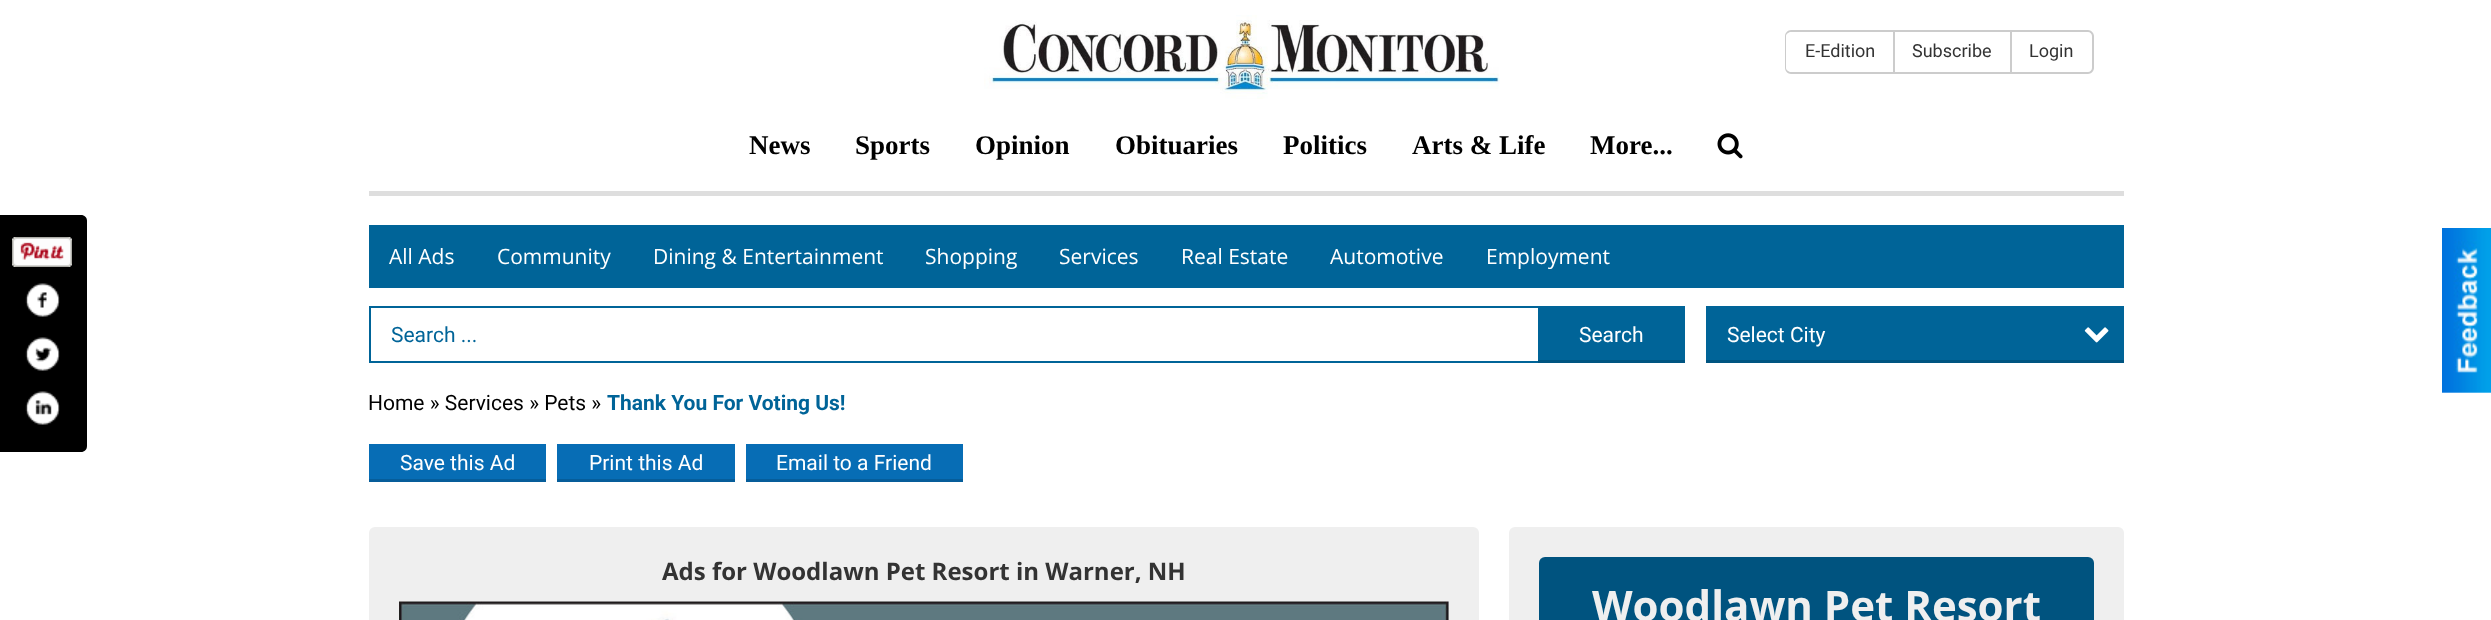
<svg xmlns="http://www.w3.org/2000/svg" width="2491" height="620">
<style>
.a{font:18px Roboto;fill:#333}
.b{font:bold 27px Liberation Serif;fill:#000}
.c{font:21px Open Sans;fill:#fff}
.d{font:21px Roboto;fill:#006498}
.e{font:21px Roboto;fill:#fff}
.f{font:21px Roboto;fill:#000}
.g{font:bold 21px Roboto;fill:#006498}
.h{font:bold 24px Open Sans;fill:#333}
.i{font:bold 42px Open Sans;fill:#efefef}
</style>
<rect width="100%" height="100%" fill="#fff"/>
<path fill="#dedede" d="M369 191h1755v5H369z"/>
<image href="1.png" x="984" y="15" width="516" height="84"/>
<path fill="#ccc" fill-rule="evenodd" d="M1791 30h102v44h-102c-3 0-6-3-6-6v-32c0-3 3-6 6-6zm0 2h102v40h-102c-2 0-5-2-5-4v-32c0-2 3-4 5-4z"/>
<path fill="none" stroke="#ccc" stroke-width="2" d="M1894 31h117v42H1894z"/>
<path fill="#ccc" fill-rule="evenodd" d="M2012 30h76c3 0 6 3 6 6v32c0 3-3 6-6 6h-76zm0 2h76c2 0 4 2 4 4v32c0 2-2 4-4 4h-76z"/>
<image href="2.png" x="1717" y="133" width="26" height="26"/>
<path fill="#000" d="M0 215h81c3.5 0 6 2.5 6 6v225c0 3.5-2.5 6-6 6h-81z"/>
<image href="3.png" x="12" y="237" width="60" height="30"/>
<image href="4.png" x="25" y="283" width="35" height="34"/>
<image href="5.png" x="25" y="337" width="35" height="34"/>
<image href="6.png" x="25" y="391" width="35" height="34"/>
<path fill="#006498" d="M369 225h1755v63H369z"/>
<path fill="none" stroke="#006498" stroke-width="2" d="M370 307h1314v55H370z"/>
<path fill="#006498" d="M1538 308h145v52H1538z"/>
<path fill="#005581" d="M1538 360h147v3H1538z"/>
<path fill="#006498" d="M1706 306h418v54H1706z"/>
<path fill="#005581" d="M1706 360h418v3H1706z"/>
<image href="7.png" x="2084" y="327" width="25" height="16"/>
<path fill="#076db5" d="M369 444h177v35H369z"/>
<path fill="#065d9a" d="M369 479h177v3H369z"/>
<path fill="#076db5" d="M557 444h178v35H557z"/>
<path fill="#065d9a" d="M557 479h178v3H557z"/>
<path fill="#076db5" d="M746 444h217v35H746z"/>
<path fill="#065d9a" d="M746 479h217v3H746z"/>
<rect fill="#efefef" x="369" y="527" width="1110" height="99" rx="6"/>
<image href="8.png" x="399" y="601" width="1050" height="19"/>
<rect fill="#efefef" x="1509" y="527" width="615" height="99" rx="6"/>
<rect fill="#00537f" x="1539" y="557" width="555" height="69" rx="6"/>
<image href="9.png" x="2442" y="228" width="49" height="165"/>
<text class="a" x="1805" y="57">E-Edition</text>
<text class="a" x="1912" y="57">Subscribe</text>
<text class="a" x="2029" y="57">Login</text>
<text class="b" x="749" y="154">News</text>
<text class="b" x="855" y="154">Sports</text>
<text class="b" x="975" y="154">Opinion</text>
<text class="b" x="1115" y="154">Obituaries</text>
<text class="b" x="1283" y="154">Politics</text>
<text class="b" x="1412" y="154">Arts &amp; Life</text>
<text class="b" x="1590" y="154">More...</text>
<text class="c" x="389" y="264">All Ads</text>
<text class="c" x="497" y="264">Community</text>
<text class="c" x="653" y="264">Dining &amp; Entertainment</text>
<text class="c" x="925" y="264">Shopping</text>
<text class="c" x="1059" y="264">Services</text>
<text class="c" x="1181" y="264">Real Estate</text>
<text class="c" x="1330" y="264">Automotive</text>
<text class="c" x="1486" y="264">Employment</text>
<text class="d" x="391" y="342">Search ...</text>
<text class="e" x="1579" y="342">Search</text>
<text class="e" x="1727" y="342">Select City</text>
<text class="f" x="368" y="410">Home » Services » Pets »</text>
<text class="g" x="607" y="410">Thank You For Voting Us!</text>
<text class="e" x="400" y="470">Save this Ad</text>
<text class="e" x="589" y="470">Print this Ad</text>
<text class="e" x="776" y="470">Email to a Friend</text>
<text class="h" x="662" y="580">Ads for Woodlawn Pet Resort in Warner, NH</text>
<text class="i" x="1592" y="621">Woodlawn Pet Resort</text>
</svg>
